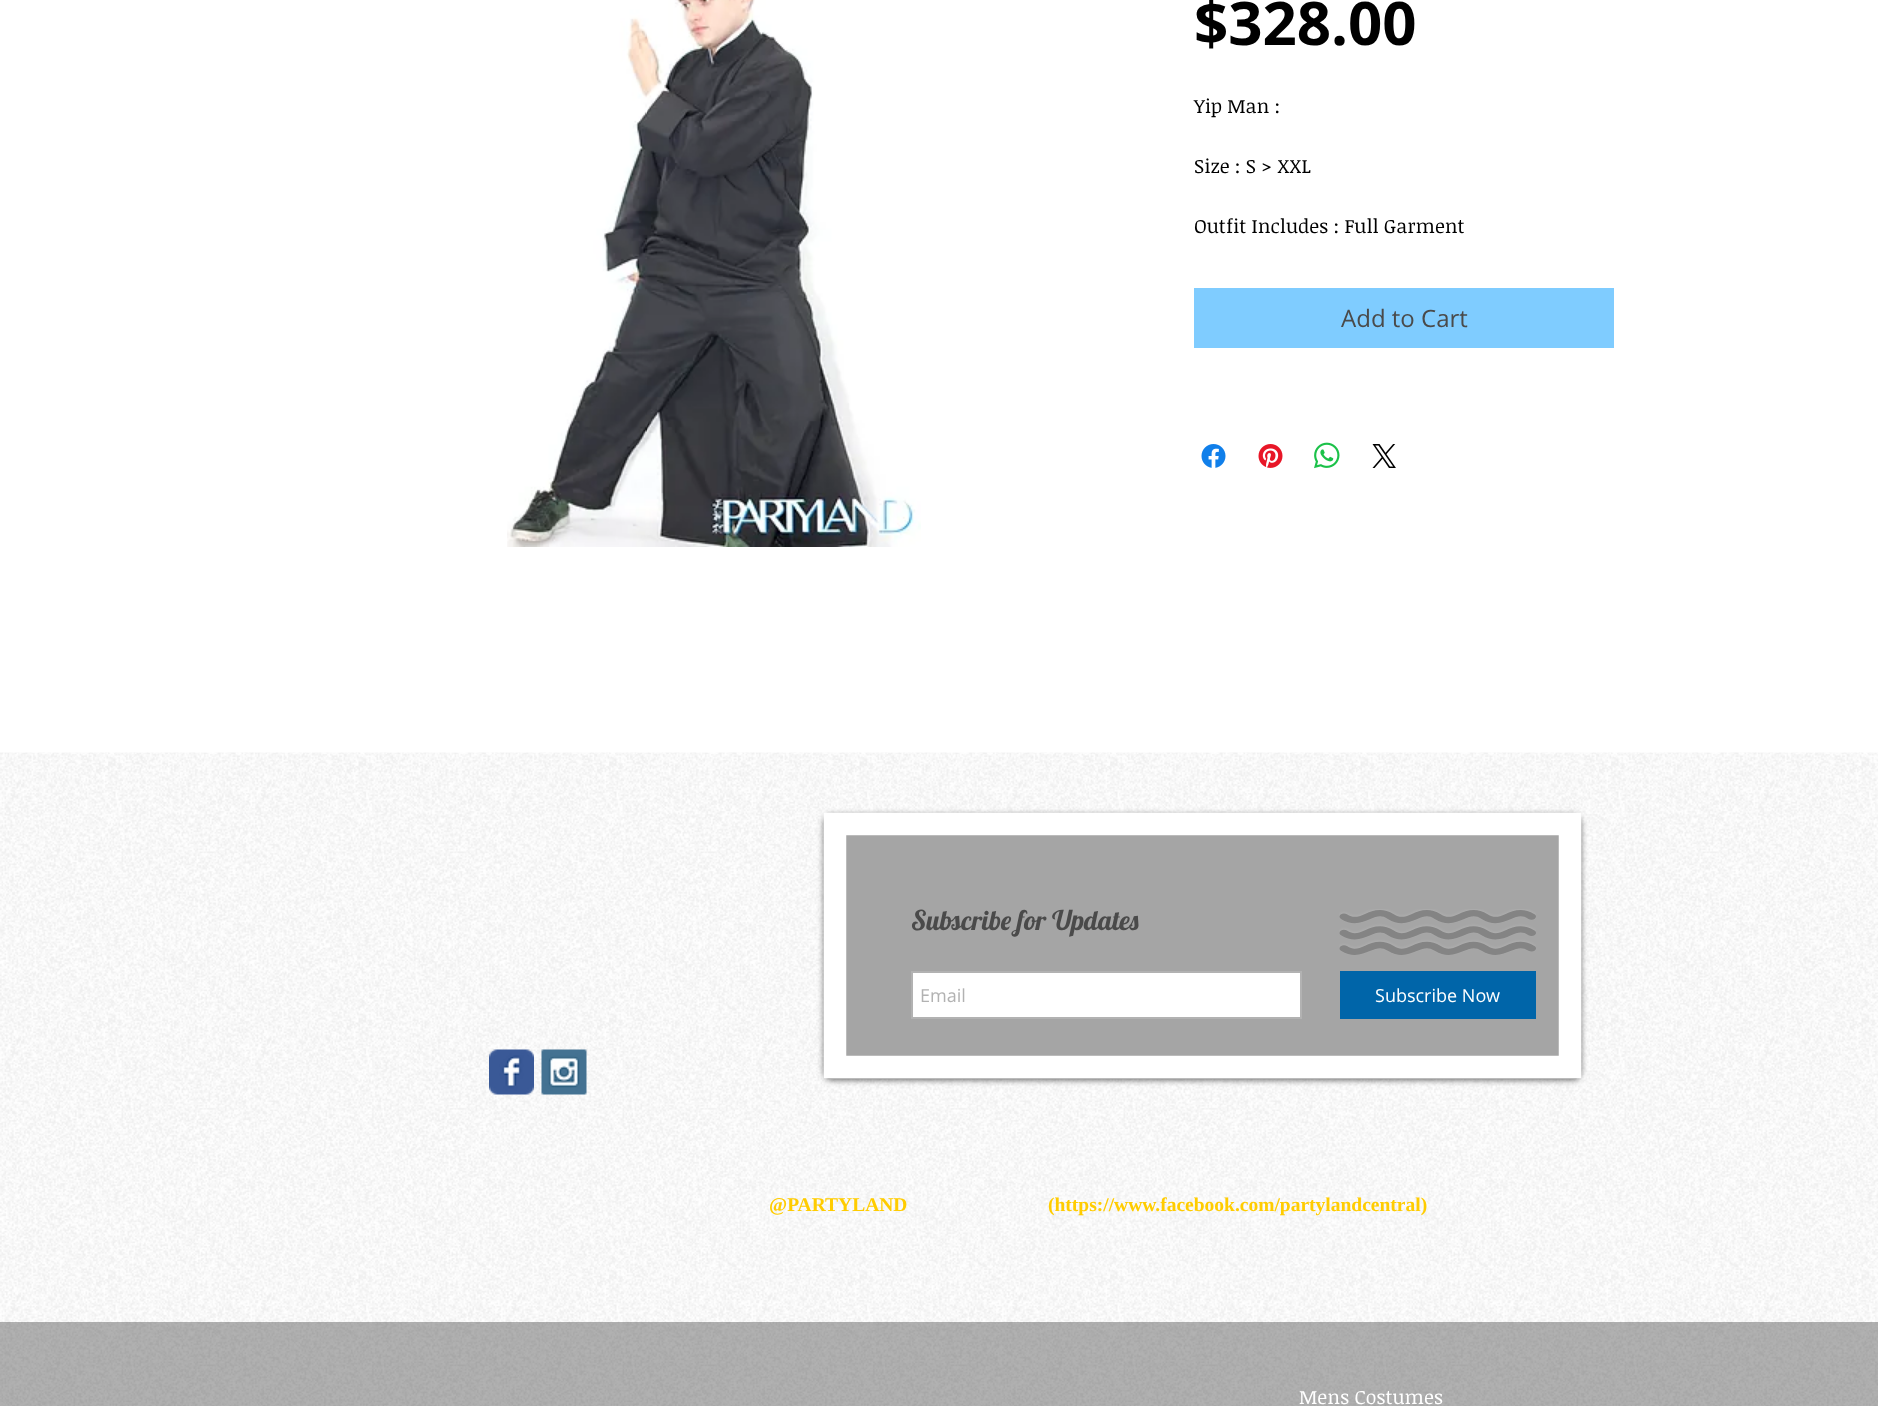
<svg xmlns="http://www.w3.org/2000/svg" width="1878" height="1406">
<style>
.a{font:bold 60px Open Sans;fill:#000}
.b{font:19.5px Noticia Text;fill:#000}
.c{font:24px Open Sans;fill:#4a4a4a}
.d{font:27px Lobster;fill:#4a4a4a}
.e{font:18px Open Sans;fill:#b2b2b2}
.f{font:18px Open Sans;fill:#fff}
.g{font:bold 19.5px Liberation Serif;fill:#fc0}
.h{font:19.5px Noticia Text;fill:#fff}
</style>
<rect width="100%" height="100%" fill="#fff"/>
<image href="1.png" x="507" y="0" width="414" height="547"/>
<path fill="#7fccff" d="M1194 288h420v60H1194z"/>
<image href="2.png" x="1201" y="444" width="25" height="24"/>
<image href="3.png" x="1258" y="444" width="25" height="24"/>
<image href="4.png" x="1314" y="442" width="26" height="27"/>
<image href="5.png" x="1372" y="444" width="24" height="24"/>
<image href="6.png" x="0" y="752" width="1878" height="654"/>
<rect fill="#00000099" filter="blur(3px)" x="824" y="815" width="757" height="265" rx="8"/>
<rect fill="#a5a5a5" x="824" y="813" width="757" height="266" rx="8"/>
<path fill="none" stroke="#fff" stroke-width="22.5" d="M835 824h735v243h-735z"/>
<image href="7.png" x="1339" y="909" width="197" height="46"/>
<path fill="#fff" stroke="#b2b2b2" stroke-width="2" d="M912 972h389v46H912z"/>
<path fill="#0065a9" d="M1340 971h196v48H1340z"/>
<image href="8.png" x="489" y="1049" width="45" height="46"/>
<image href="9.png" x="541" y="1049" width="46" height="46"/>
<path fill="#0000004d" d="M0 1322h1878v84H0z"/>
<text class="a" x="1194" y="45">$328.00</text>
<text class="b" x="1194" y="113">Yip Man :</text>
<text class="b" x="1194" y="173">Size : S &gt; XXL</text>
<text class="b" x="1194" y="233">Outfit Includes : Full Garment</text>
<text class="c" x="1341" y="327">Add to Cart</text>
<text class="d" x="911" y="930">Subscribe for Updates</text>
<text class="e" x="920" y="1002">Email</text>
<text class="f" x="1375" y="1002">Subscribe Now</text>
<text class="g" x="769" y="1211">@PARTYLAND</text>
<text class="g" x="1048" y="1211">(https://www.facebook.com/partylandcentral)</text>
<text class="h" x="1299" y="1404">Mens Costumes</text>
</svg>
